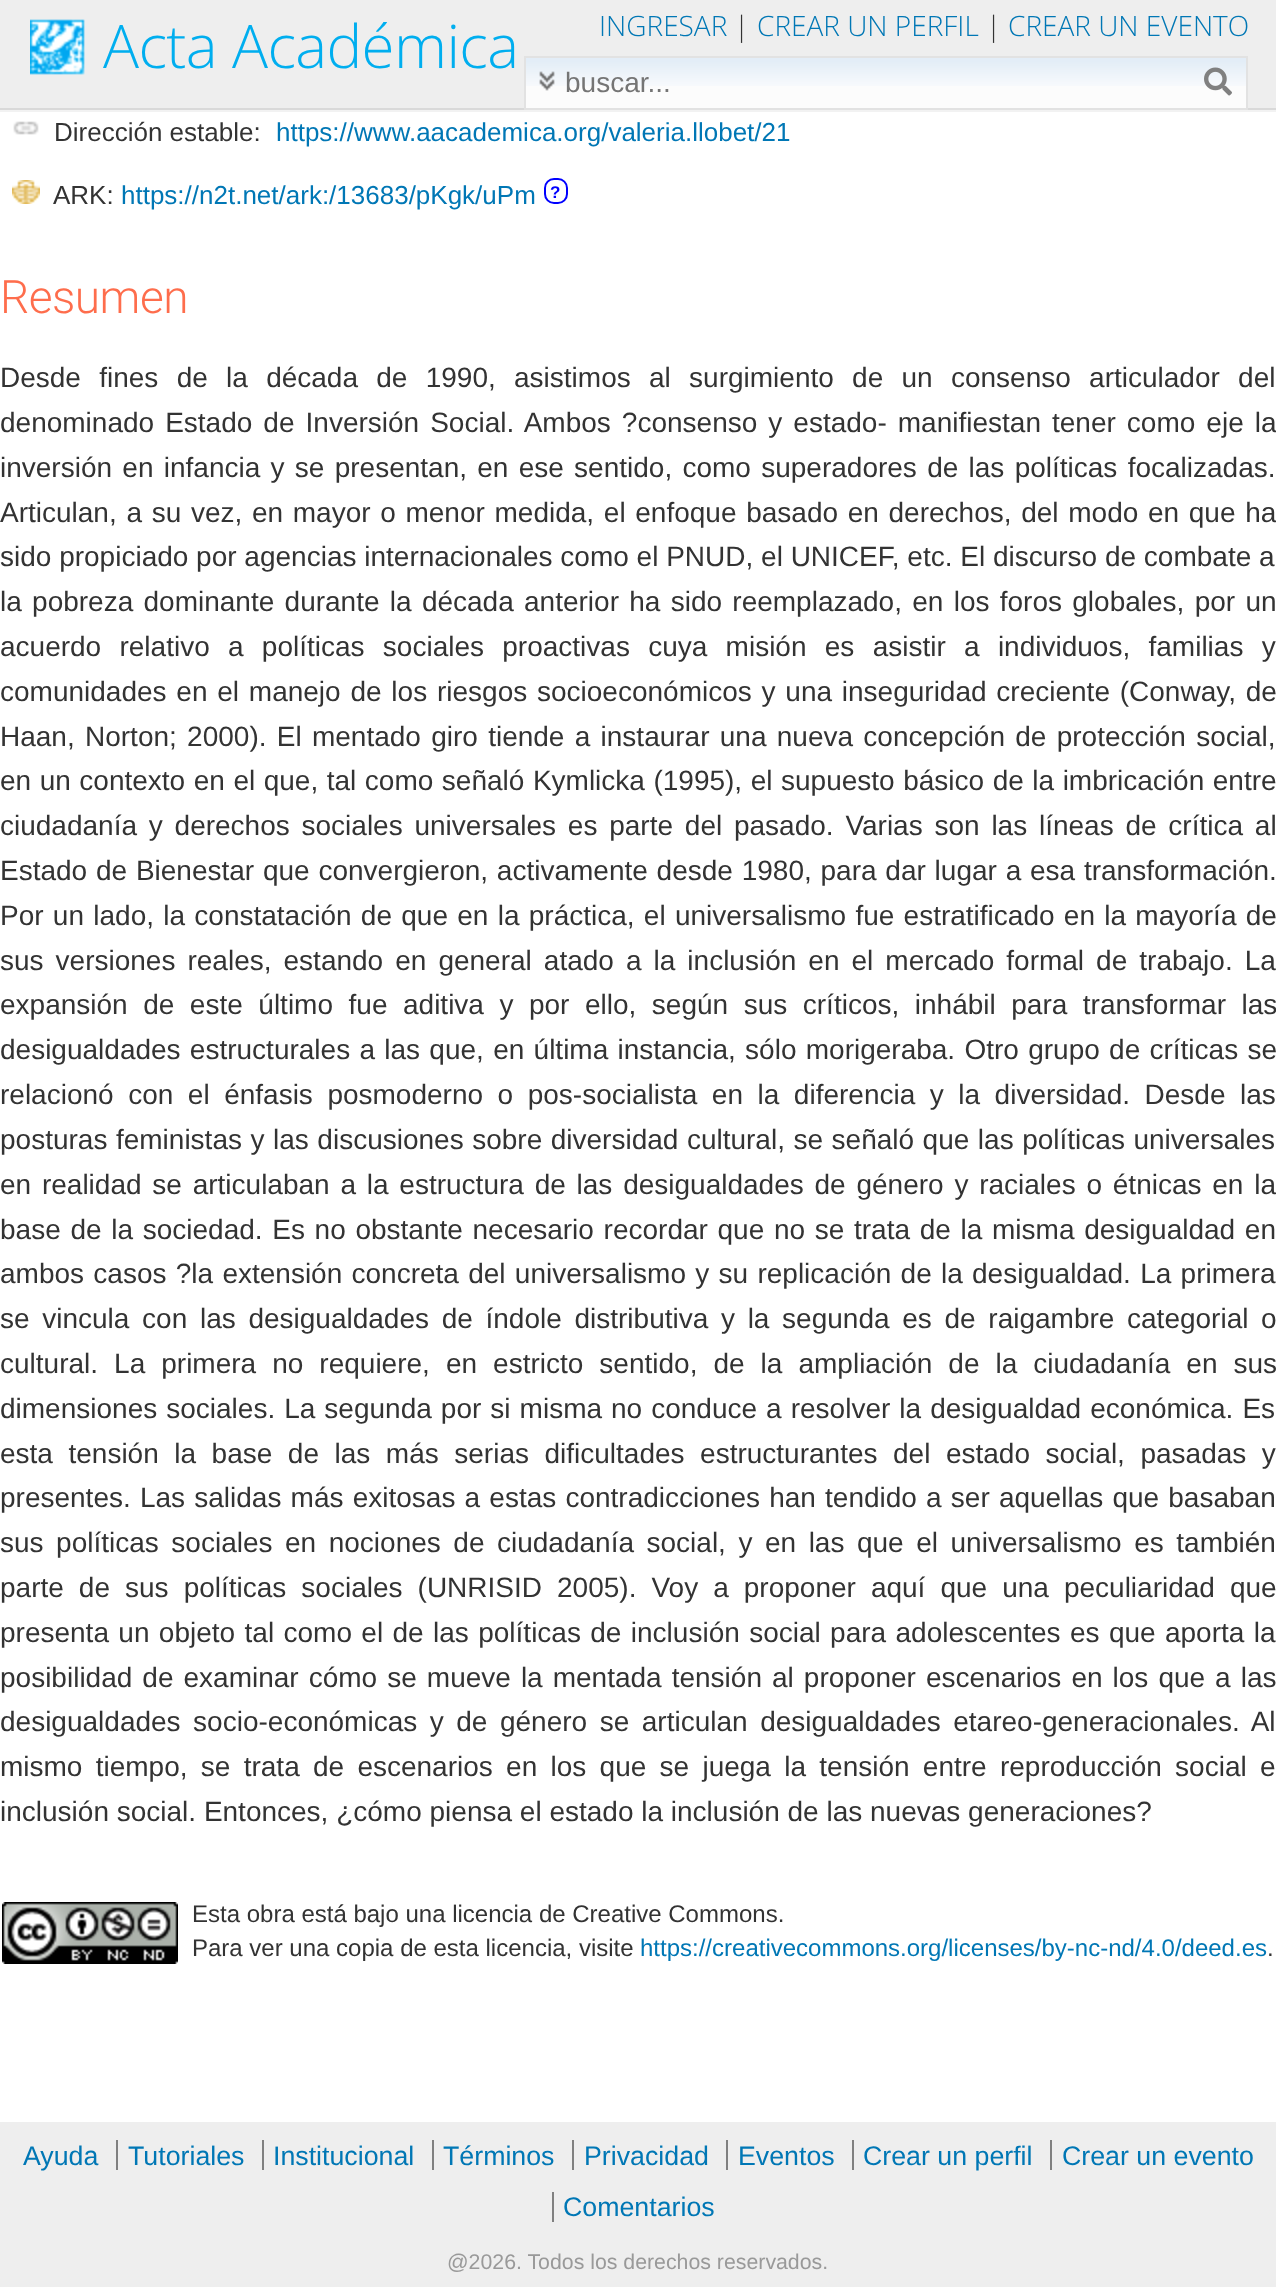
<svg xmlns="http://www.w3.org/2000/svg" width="1276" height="2287">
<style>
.a{font:300 60px Open Sans;letter-spacing:-0.6px;fill:#00aeef}
.b{font:300 28px Open Sans;fill:#0077b5}
.c{font:300 28px Open Sans;fill:#333}
.d{font:28px Liberation Sans;fill:#757575}
.e{font:26px Liberation Sans;fill:#333}
.f{font:26px Liberation Sans;fill:#0077b5}
.g{font:bold 17px Liberation Sans;fill:#00f}
.h{font:300 46px Roboto;letter-spacing:-0.5px;fill:#fe6d4c}
.i{font:28px Liberation Sans;fill:#333}
.j{font:24px Liberation Sans;fill:#333}
.k{font:24px Liberation Sans;fill:#0077b5}
.l{font:26.75px Liberation Sans;fill:#0077b5}
.m{font:21.3px Liberation Sans;fill:#999}
</style>
<rect width="100%" height="100%" fill="#fff"/>
<path fill="#f2f2f2" d="M0 110h1276v2H0z"/>
<path fill="#d9d9d9" d="M0 108h1276v2H0z"/>
<path fill="#eee" d="M0 0h1276v108H0z"/>
<image href="1.png" x="30" y="19" width="55" height="56"/>
<path fill="#fcfcfc" d="M526 86h720v22H526z"/>
<image href="3.png" x="526" y="58" width="720" height="28"/>
<path fill="none" stroke="#e2e2e2" stroke-width="2" d="M525 57h722v52H525z"/>
<image href="2.png" x="539" y="71" width="16" height="20"/>
<image href="4.png" x="1204" y="67" width="28" height="29"/>
<image href="5.png" x="13" y="121" width="26" height="14"/>
<image href="6.png" x="12" y="180" width="28" height="24"/>
<rect fill="none" stroke="#00f" stroke-width="2" x="545" y="179" width="22" height="24" rx="9"/>
<image href="7.png" x="2" y="1902" width="176" height="62"/>
<path fill="#eee" d="M0 2122h1276v165H0z"/>
<path fill="#808080" d="M116 2140h2v30H116z"/>
<path fill="#808080" d="M262 2140h2v30H262z"/>
<path fill="#808080" d="M432 2140h2v30H432z"/>
<path fill="#808080" d="M572 2140h2v30H572z"/>
<path fill="#808080" d="M726 2140h2v30H726z"/>
<path fill="#808080" d="M852 2140h2v30H852z"/>
<path fill="#808080" d="M1050 2140h2v30H1050z"/>
<path fill="#808080" d="M552 2192h2v30H552z"/>
<text class="a" x="103" y="68">Acta Académica</text>
<text class="b" x="599" y="36">INGRESAR</text>
<text class="c" x="734" y="36">|</text>
<text class="b" x="757" y="36">CREAR UN PERFIL</text>
<text class="c" x="986" y="36">|</text>
<text class="b" x="1008" y="36">CREAR UN EVENTO</text>
<text class="d" x="565" y="92">buscar...</text>
<text class="e" x="54" y="141">Dirección estable:</text>
<text class="f" x="276" y="141">https://www.aacademica.org/valeria.llobet/21</text>
<text class="e" x="53" y="204">ARK:</text>
<text class="f" x="121" y="204">https://n2t.net/ark:/13683/pKgk/uPm</text>
<text class="g" x="550" y="198">?</text>
<text class="h" x="0" y="313">Resumen</text>
<text class="i" x="0" y="387" word-spacing="10.5">Desde fines de la década de 1990, asistimos al surgimiento de un consenso articulador del</text>
<text class="i" x="0" y="432" word-spacing="3.25">denominado Estado de Inversión Social. Ambos ?consenso y estado- manifiestan tener como eje la</text>
<text class="i" x="0" y="477" word-spacing="2.5">inversión en infancia y se presentan, en ese sentido, como superadores de las políticas focalizadas.</text>
<text class="i" x="0" y="522" word-spacing="1.9">Articulan, a su vez, en mayor o menor medida, el enfoque basado en derechos, del modo en que ha</text>
<text class="i" x="0" y="566">sido propiciado por agencias internacionales como el PNUD, el UNICEF, etc. El discurso de combate a</text>
<text class="i" x="0" y="611" word-spacing="2.5">la pobreza dominante durante la década anterior ha sido reemplazado, en los foros globales, por un</text>
<text class="i" x="0" y="656" word-spacing="10.5">acuerdo relativo a políticas sociales proactivas cuya misión es asistir a individuos, familias y</text>
<text class="i" x="0" y="701" word-spacing="2">comunidades en el manejo de los riesgos socioeconómicos y una inseguridad creciente (Conway, de</text>
<text class="i" x="0" y="746" word-spacing="2.5">Haan, Norton; 2000). El mentado giro tiende a instaurar una nueva concepción de protección social,</text>
<text class="i" x="0" y="790" word-spacing="0.75">en un contexto en el que, tal como señaló Kymlicka (1995), el supuesto básico de la imbricación entre</text>
<text class="i" x="0" y="835" word-spacing="4">ciudadanía y derechos sociales universales es parte del pasado. Varias son las líneas de crítica al</text>
<text class="i" x="0" y="880" word-spacing="1">Estado de Bienestar que convergieron, activamente desde 1980, para dar lugar a esa transformación.</text>
<text class="i" x="0" y="925" word-spacing="1.5">Por un lado, la constatación de que en la práctica, el universalismo fue estratificado en la mayoría de</text>
<text class="i" x="0" y="970" word-spacing="4.25">sus versiones reales, estando en general atado a la inclusión en el mercado formal de trabajo. La</text>
<text class="i" x="0" y="1014" word-spacing="7.75">expansión de este último fue aditiva y por ello, según sus críticos, inhábil para transformar las</text>
<text class="i" x="0" y="1059" word-spacing="1.5">desigualdades estructurales a las que, en última instancia, sólo morigeraba. Otro grupo de críticas se</text>
<text class="i" x="0" y="1104" word-spacing="6.75">relacionó con el énfasis posmoderno o pos-socialista en la diferencia y la diversidad. Desde las</text>
<text class="i" x="0" y="1149" word-spacing="0.75">posturas feministas y las discusiones sobre diversidad cultural, se señaló que las políticas universales</text>
<text class="i" x="0" y="1194" word-spacing="3">en realidad se articulaban a la estructura de las desigualdades de género y raciales o étnicas en la</text>
<text class="i" x="0" y="1239" word-spacing="1.9">base de la sociedad. Es no obstante necesario recordar que no se trata de la misma desigualdad en</text>
<text class="i" x="0" y="1283" word-spacing="1.5">ambos casos ?la extensión concreta del universalismo y su replicación de la desigualdad. La primera</text>
<text class="i" x="0" y="1328" word-spacing="4.9">se vincula con las desigualdades de índole distributiva y la segunda es de raigambre categorial o</text>
<text class="i" x="0" y="1373" word-spacing="8.25">cultural. La primera no requiere, en estricto sentido, de la ampliación de la ciudadanía en sus</text>
<text class="i" x="0" y="1418" word-spacing="1.25">dimensiones sociales. La segunda por si misma no conduce a resolver la desigualdad económica. Es</text>
<text class="i" x="0" y="1463" word-spacing="7.75">esta tensión la base de las más serias dificultades estructurantes del estado social, pasadas y</text>
<text class="i" x="0" y="1507" word-spacing="1.4">presentes. Las salidas más exitosas a estas contradicciones han tendido a ser aquellas que basaban</text>
<text class="i" x="0" y="1552" word-spacing="4.75">sus políticas sociales en nociones de ciudadanía social, y en las que el universalismo es también</text>
<text class="i" x="0" y="1597" word-spacing="7.25">parte de sus políticas sociales (UNRISID 2005). Voy a proponer aquí que una peculiaridad que</text>
<text class="i" x="0" y="1642" word-spacing="1.6">presenta un objeto tal como el de las políticas de inclusión social para adolescentes es que aporta la</text>
<text class="i" x="0" y="1687" word-spacing="2.25">posibilidad de examinar cómo se mueve la mentada tensión al proponer escenarios en los que a las</text>
<text class="i" x="0" y="1731" word-spacing="4.75">desigualdades socio-económicas y de género se articulan desigualdades etareo-generacionales. Al</text>
<text class="i" x="0" y="1776" word-spacing="5.5">mismo tiempo, se trata de escenarios en los que se juega la tensión entre reproducción social e</text>
<text class="i" x="0" y="1821">inclusión social. Entonces, ¿cómo piensa el estado la inclusión de las nuevas generaciones?</text>
<text class="j" x="192" y="1922">Esta obra está bajo una licencia de Creative Commons.</text>
<text class="j" x="192" y="1956">Para ver una copia de esta licencia, visite</text>
<text class="k" x="640" y="1956">https://creativecommons.org/licenses/by-nc-nd/4.0/deed.es</text>
<text class="j" x="1267" y="1956">.</text>
<text class="l" x="23" y="2165">Ayuda</text>
<text class="l" x="128" y="2165">Tutoriales</text>
<text class="l" x="273" y="2165">Institucional</text>
<text class="l" x="443" y="2165">Términos</text>
<text class="l" x="584" y="2165">Privacidad</text>
<text class="l" x="738" y="2165">Eventos</text>
<text class="l" x="863" y="2165">Crear un perfil</text>
<text class="l" x="1062" y="2165">Crear un evento</text>
<text class="l" x="563" y="2216">Comentarios</text>
<text class="m" x="447" y="2269">@2026. Todos los derechos reservados.</text>
</svg>
